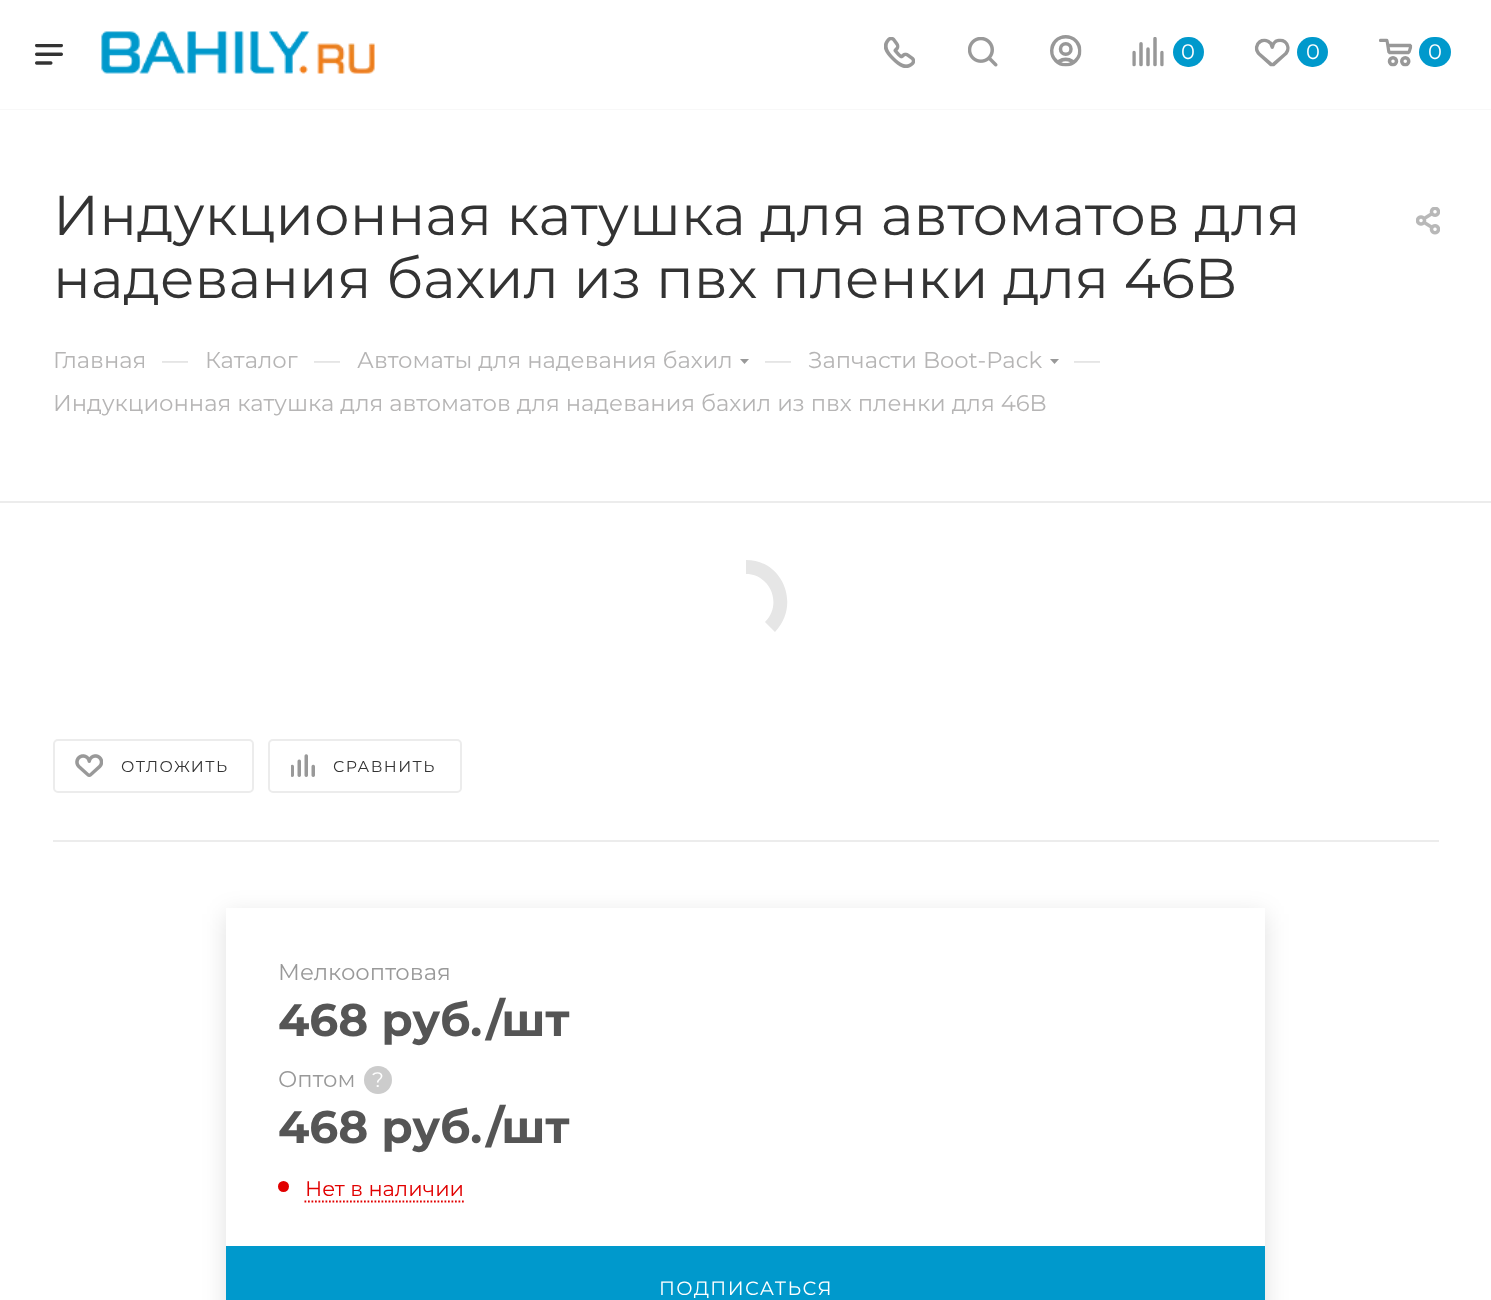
<svg xmlns="http://www.w3.org/2000/svg" width="1491" height="1300">
<style>
.a{font:21px Montserrat;fill:#fff}
.b{font:56px Montserrat;fill:#333}
.c{font:22.75px Montserrat;fill:#b6b5b5}
.d{font:26px Montserrat;fill:#ddd}
.e{font:15.75px Montserrat;letter-spacing:1.4px;fill:#333}
.f{font:22.75px Montserrat;fill:#999}
.g{font:bold 45.5px Montserrat;fill:#555}
.h{font:21px Montserrat;fill:#e10000}
.i{font:19.25px Montserrat;letter-spacing:1.4px;fill:#fff}
</style>
<rect width="100%" height="100%" fill="#fff"/>
<path fill="#f8f8f8" d="M0 109h1491v1H0z"/>
<image href="1.png" x="35" y="44" width="28" height="21"/>
<image href="2.png" x="101" y="31" width="274" height="43"/>
<image href="3.png" x="884" y="37" width="31" height="31"/>
<image href="4.png" x="968" y="37" width="30" height="30"/>
<image href="5.png" x="1050" y="35" width="32" height="32"/>
<image href="6.png" x="1132" y="37" width="32" height="30"/>
<rect fill="#09c" x="1173" y="37" width="31" height="30" rx="15"/>
<image href="7.png" x="1254" y="38" width="36" height="29"/>
<rect fill="#09c" x="1297" y="37" width="31" height="30" rx="15"/>
<image href="8.png" x="1379" y="38" width="34" height="29"/>
<rect fill="#09c" x="1419" y="37" width="32" height="30" rx="15"/>
<image href="9.png" x="1416" y="207" width="24" height="28"/>
<path fill="#999" fill-rule="evenodd" d="M740 359h9l-4.5 5z"/>
<path fill="#999" fill-rule="evenodd" d="M1050 359h9l-4.5 5z"/>
<path fill="#ececec" d="M0 501h1491v2H0z"/>
<path fill="#e6e6e6" d="M746 560c37 0 55 45 29 72l-10-10c18-18 5-48-19-48z"/>
<path fill="#ececec" d="M53 840h1386v2H53z"/>
<rect fill="none" stroke="#ececec" stroke-width="2" x="54" y="740" width="199" height="52" rx="4"/>
<image href="10.png" x="75" y="754" width="28" height="23"/>
<rect fill="none" stroke="#ececec" stroke-width="2" x="269" y="740" width="192" height="52" rx="4"/>
<image href="11.png" x="291" y="754" width="24" height="23"/>
<path fill="#0000001f" filter="blur(12px)" d="M226 914h1039v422H226z"/>
<path fill="#fff" d="M226 908h1039v338H226z"/>
<circle fill="#ccc" cx="378" cy="1080" r="14"/>
<circle fill="#e10000" cx="283.5" cy="1186.5" r="5.5"/>
<path fill="none" stroke="#e10000" stroke-width="1.8" stroke-dasharray="1.75 1.75" d="M304.5 1201.5h159.5"/>
<path fill="#09c" d="M226 1246h1039v54H226z"/>
<text class="a" x="1181" y="59">0</text>
<text class="a" x="1306" y="59">0</text>
<text class="a" x="1428" y="59">0</text>
<text class="b" x="53" y="235">Индукционная катушка для автоматов для</text>
<text class="b" x="53" y="298">надевания бахил из пвх пленки для 46B</text>
<text class="c" x="53" y="368">Главная</text>
<text class="d" x="162" y="369">—</text>
<text class="c" x="205" y="368">Каталог</text>
<text class="d" x="314" y="369">—</text>
<text class="c" x="357" y="368">Автоматы для надевания бахил</text>
<text class="d" x="765" y="369">—</text>
<text class="c" x="808" y="368">Запчасти Boot-Pack</text>
<text class="d" x="1074" y="369">—</text>
<text class="c" x="53" y="411">Индукционная катушка для автоматов для надевания бахил из пвх пленки для 46B</text>
<text class="e" x="121" y="772">ОТЛОЖИТЬ</text>
<text class="e" x="333" y="772">СРАВНИТЬ</text>
<text class="f" x="278" y="980">Мелкооптовая</text>
<text class="g" x="278" y="1036">468 руб./шт</text>
<text class="f" x="278" y="1087">Оптом</text>
<text class="a" x="372" y="1087">?</text>
<text class="g" x="278" y="1143">468 руб./шт</text>
<text class="h" x="305" y="1196">Нет в наличии</text>
<text class="i" x="659" y="1295">ПОДПИСАТЬСЯ</text>
</svg>
